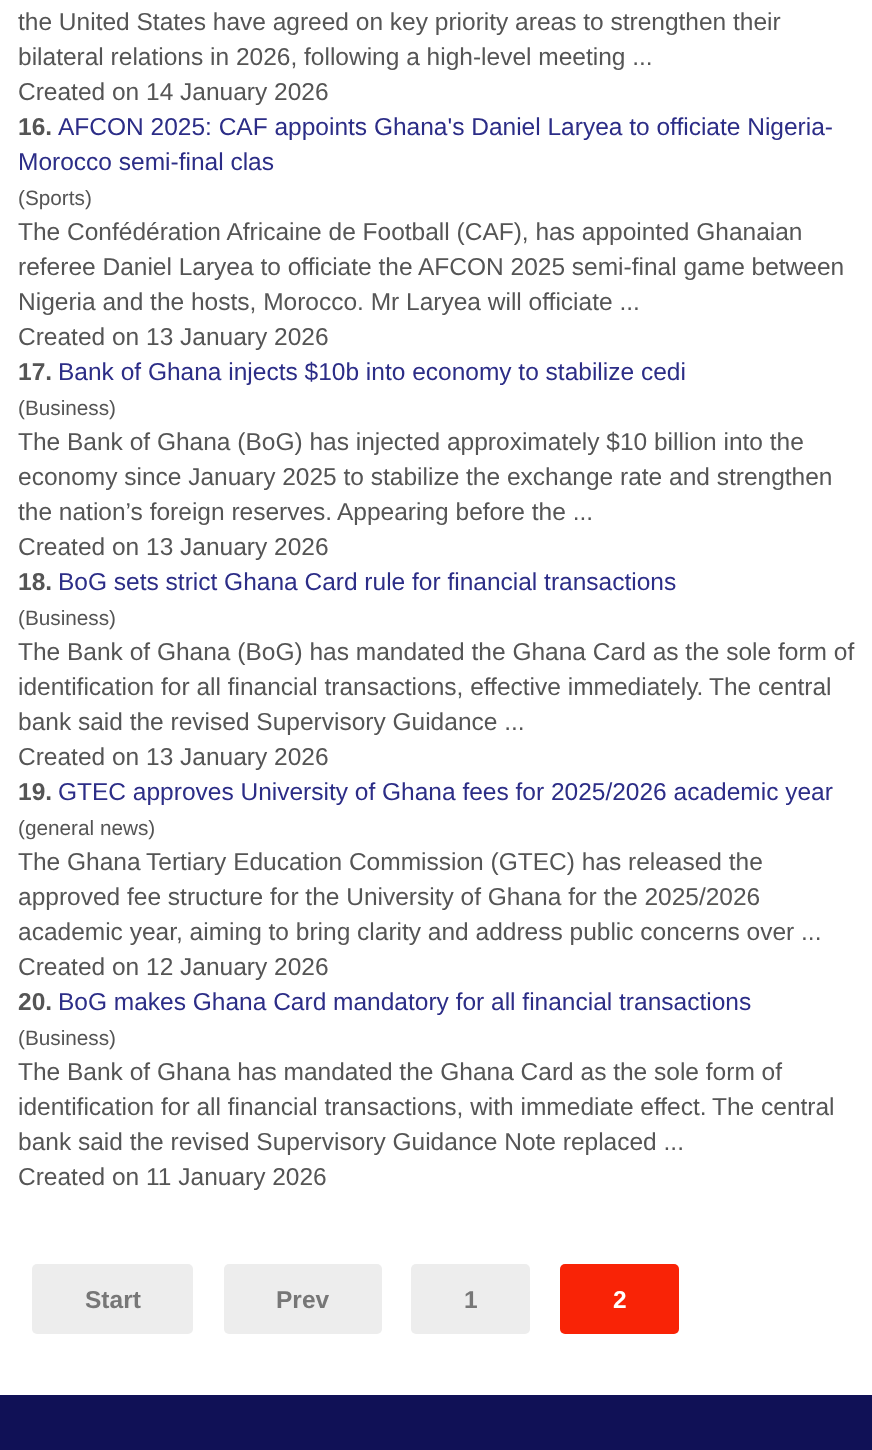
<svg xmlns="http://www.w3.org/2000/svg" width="872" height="1450">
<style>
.a{font:24.5px Liberation Sans;fill:#555}
.b{font:bold 24.5px Liberation Sans;fill:#555}
.c{font:24.5px Liberation Sans;fill:#2c2d87}
.d{font:20.75px Liberation Sans;fill:#555}
.e{font:bold 24.5px Liberation Sans;fill:#777}
.f{font:bold 24.5px Liberation Sans;fill:#fff}
</style>
<rect width="100%" height="100%" fill="#fff"/>
<rect fill="#ededed" x="32" y="1264" width="161" height="70" rx="5"/>
<rect fill="#ededed" x="224" y="1264" width="158" height="70" rx="5"/>
<rect fill="#ededed" x="411" y="1264" width="119" height="70" rx="5"/>
<rect fill="#f92306" x="560" y="1264" width="119" height="70" rx="5"/>
<path fill="#101156" d="M0 1395h872v55H0z"/>
<text class="a" x="18" y="30">the United States have agreed on key priority areas to strengthen their</text>
<text class="a" x="18" y="65">bilateral relations in 2026, following a high-level meeting ...</text>
<text class="a" x="18" y="100">Created on 14 January 2026</text>
<text class="b" x="18" y="135">16.</text>
<text class="c" x="58" y="135">AFCON 2025: CAF appoints Ghana's Daniel Laryea to officiate Nigeria-</text>
<text class="c" x="18" y="170">Morocco semi-final clas</text>
<text class="d" x="18" y="205">(Sports)</text>
<text class="a" x="18" y="240">The Confédération Africaine de Football (CAF), has appointed Ghanaian</text>
<text class="a" x="18" y="275">referee Daniel Laryea to officiate the AFCON 2025 semi-final game between</text>
<text class="a" x="18" y="310">Nigeria and the hosts, Morocco. Mr Laryea will officiate ...</text>
<text class="a" x="18" y="345">Created on 13 January 2026</text>
<text class="b" x="18" y="380">17.</text>
<text class="c" x="58" y="380">Bank of Ghana injects $10b into economy to stabilize cedi</text>
<text class="d" x="18" y="415">(Business)</text>
<text class="a" x="18" y="450">The Bank of Ghana (BoG) has injected approximately $10 billion into the</text>
<text class="a" x="18" y="485">economy since January 2025 to stabilize the exchange rate and strengthen</text>
<text class="a" x="18" y="520">the nation’s foreign reserves.</text>
<text class="a" x="337" y="520">Appearing before the ...</text>
<text class="a" x="18" y="555">Created on 13 January 2026</text>
<text class="b" x="18" y="590">18.</text>
<text class="c" x="58" y="590">BoG sets strict Ghana Card rule for financial transactions</text>
<text class="d" x="18" y="625">(Business)</text>
<text class="a" x="18" y="660">The Bank of Ghana (BoG) has mandated the Ghana Card as the sole form of</text>
<text class="a" x="18" y="695">identification for all financial transactions, effective immediately.</text>
<text class="a" x="709" y="695">The central</text>
<text class="a" x="18" y="730">bank said the revised Supervisory Guidance ...</text>
<text class="a" x="18" y="765">Created on 13 January 2026</text>
<text class="b" x="18" y="800">19.</text>
<text class="c" x="58" y="800">GTEC approves University of Ghana fees for 2025/2026 academic year</text>
<text class="d" x="18" y="835">(general news)</text>
<text class="a" x="18" y="870">The Ghana</text>
<text class="a" x="146" y="870">Tertiary Education Commission (GTEC) has released the</text>
<text class="a" x="18" y="905">approved fee structure for the University of Ghana for the 2025/2026</text>
<text class="a" x="18" y="940">academic year, aiming to bring clarity and address public concerns over ...</text>
<text class="a" x="18" y="975">Created on 12 January 2026</text>
<text class="b" x="18" y="1010">20.</text>
<text class="c" x="58" y="1010">BoG makes Ghana Card mandatory for all financial transactions</text>
<text class="d" x="18" y="1045">(Business)</text>
<text class="a" x="18" y="1080">The Bank of Ghana has mandated the Ghana Card as the sole form of</text>
<text class="a" x="18" y="1115">identification for all financial transactions, with immediate effect.</text>
<text class="a" x="712" y="1115">The central</text>
<text class="a" x="18" y="1150">bank said the revised Supervisory Guidance Note replaced ...</text>
<text class="a" x="18" y="1185">Created on 11 January 2026</text>
<text class="e" x="85" y="1308">Start</text>
<text class="e" x="276" y="1308">Prev</text>
<text class="e" x="464" y="1308">1</text>
<text class="f" x="613" y="1308">2</text>
</svg>
